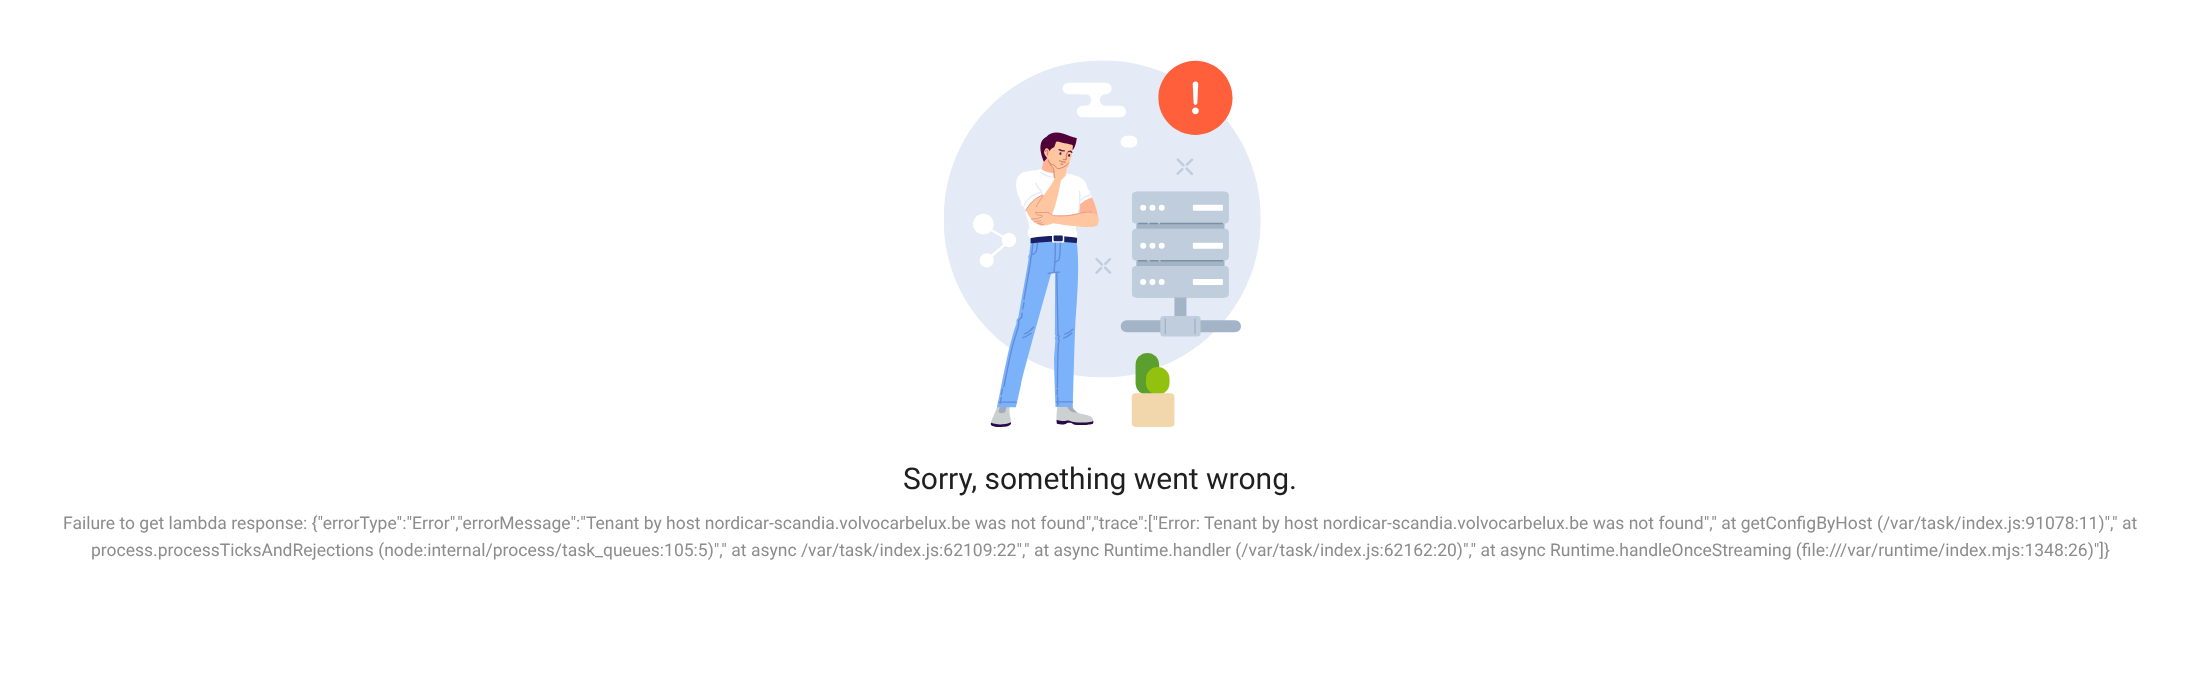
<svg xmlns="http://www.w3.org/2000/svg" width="2200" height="684">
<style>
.a{font:30px Roboto;fill:#1f1f1f}
.b{font:17.5px Roboto;fill:#8c8c8c}
</style>
<rect width="100%" height="100%" fill="#fff"/>
<image href="1.png" x="944" y="60" width="317" height="367"/>
<text class="a" x="903" y="489">Sorry, something went wrong.</text>
<text class="b" x="63" y="529">Failure to get lambda response: {"errorType":"Error","errorMessage":"Tenant by host nordicar-scandia.volvocarbelux.be was not found","trace":["Error: Tenant by host nordicar-scandia.volvocarbelux.be was not found"," at getConfigByHost (/var/task/index.js:91078:11)"," at</text>
<text class="b" x="91" y="556">process.processTicksAndRejections (node:internal/process/task_queues:105:5)"," at async /var/task/index.js:62109:22"," at async Runtime.handler (/var/task/index.js:62162:20)"," at async Runtime.handleOnceStreaming (file:///var/runtime/index.mjs:1348:26)"]}</text>
</svg>
